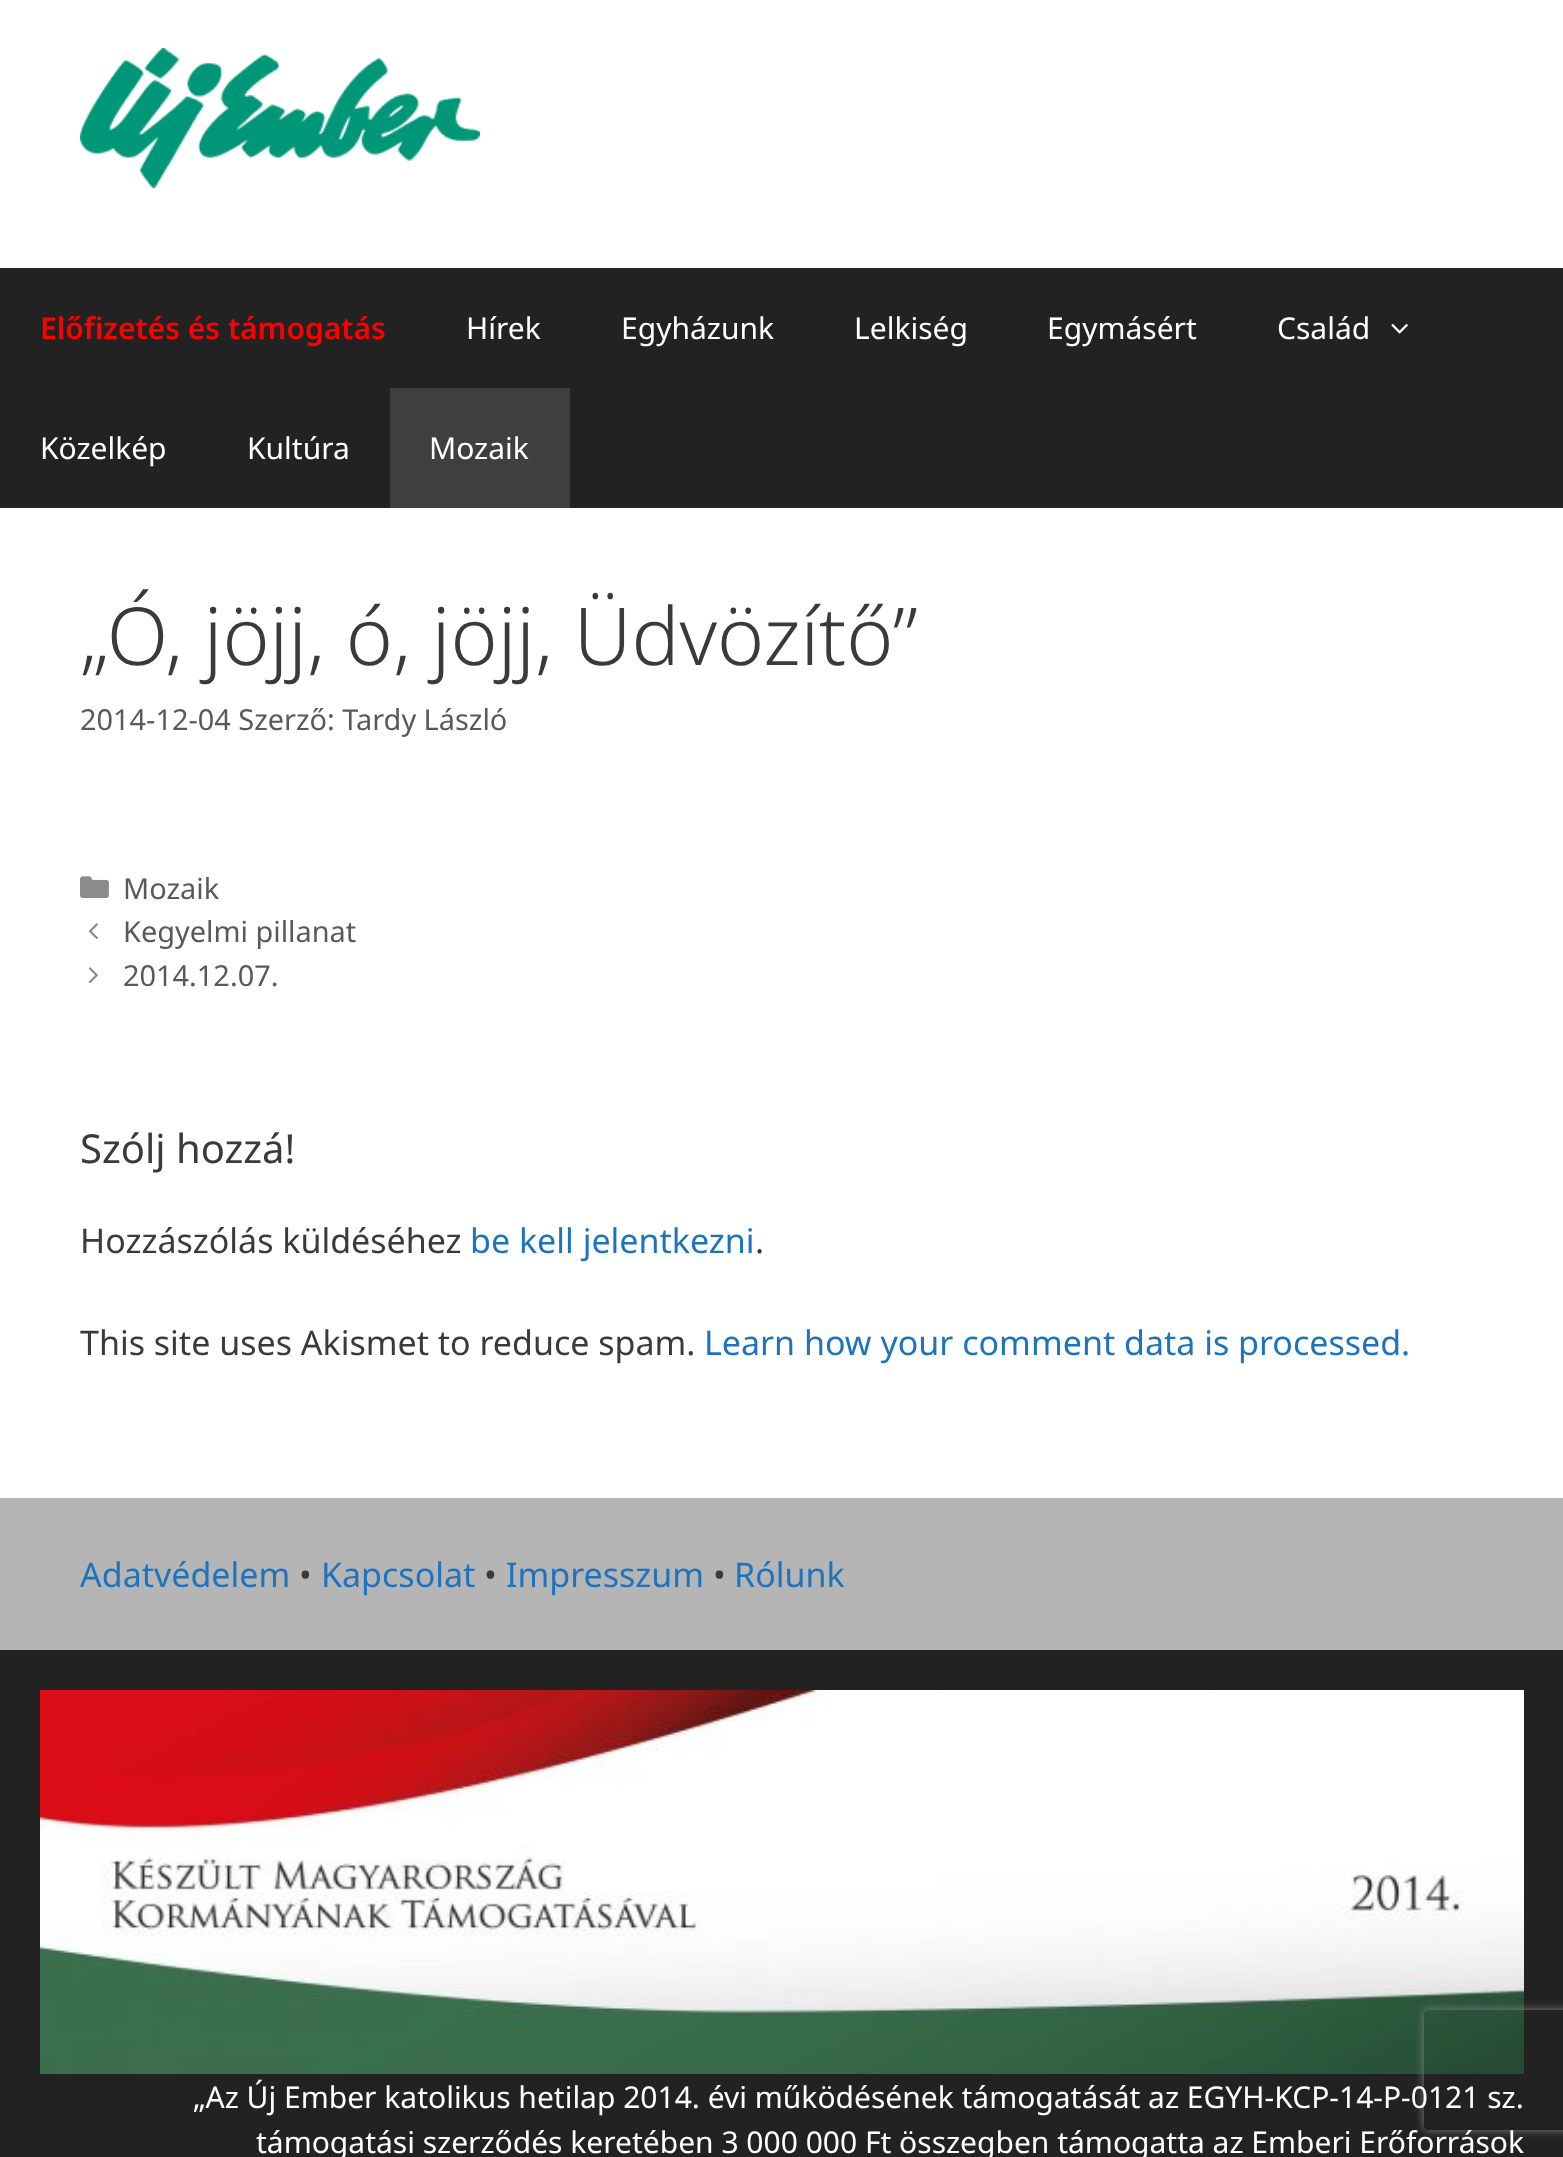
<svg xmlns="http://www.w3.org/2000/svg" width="1563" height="2157">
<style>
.a{font:600 30px Noto Sans;fill:#f00}
.b{font:30px Noto Sans;fill:#fff}
.c{font:300 80px Noto Sans;fill:#3a3a3a}
.d{font:28.9px Noto Sans;fill:#595959}
.e{font:40px Noto Sans;fill:#3a3a3a}
.f{font:34px Noto Sans;fill:#3a3a3a}
.g{font:34px Noto Sans;fill:#1e73be}
</style>
<defs>
<clipPath id="clip1"><path d="M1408 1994h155v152h-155zm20 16h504c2 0 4 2 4 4v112c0 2-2 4-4 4h-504c-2 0-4-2-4-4v-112c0-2 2-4 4-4z" clip-rule="evenodd"/></clipPath>
</defs>
<rect width="100%" height="100%" fill="#222"/>
<path fill="#fff" d="M0 0h1563v268H0z"/>
<image href="1.png" x="80" y="48" width="400" height="140"/>
<image href="2.png" x="1391" y="323" width="17" height="11"/>
<path fill="#3f3f3f" d="M390 388h180v120H390z"/>
<path fill="#fff" d="M0 508h1563v990H0z"/>
<image href="3.png" x="80" y="876" width="29" height="22"/>
<image href="4.png" x="88" y="923" width="10" height="17"/>
<image href="5.png" x="88" y="967" width="10" height="17"/>
<path fill="#b5b5b5" d="M0 1498h1563v152H0z"/>
<image href="6.png" x="40" y="1690" width="1484" height="384"/>
<g clip-path="url(#clip1)">
<rect fill="#808080" filter="blur(5px)" x="1424" y="2010" width="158" height="120" rx="4"/>
</g>
<text class="a" x="40" y="339">Előfizetés és támogatás</text>
<text class="b" x="466" y="339">Hírek</text>
<text class="b" x="621" y="339">Egyházunk</text>
<text class="b" x="854" y="339">Lelkiség</text>
<text class="b" x="1047" y="339">Egymásért</text>
<text class="b" x="1277" y="339">Család</text>
<text class="b" x="40" y="459">Közelkép</text>
<text class="b" x="247" y="459">Kultúra</text>
<text class="b" x="429" y="459">Mozaik</text>
<text class="c" x="80" y="665">„Ó, jöjj, ó, jöjj, Üdvözítő”</text>
<text class="d" x="80" y="730">2014-12-04 Szerző: Tardy László</text>
<text class="d" x="123" y="899">Mozaik</text>
<text class="d" x="123" y="942">Kegyelmi pillanat</text>
<text class="d" x="123" y="986">2014.12.07.</text>
<text class="e" x="80" y="1163">Szólj hozzá!</text>
<text class="f" x="80" y="1253">Hozzászólás küldéséhez</text>
<text class="g" x="470" y="1253">be kell jelentkezni</text>
<text class="f" x="755" y="1253">.</text>
<text class="f" x="80" y="1355">This site uses Akismet to reduce spam.</text>
<text class="g" x="704" y="1355">Learn how your comment data is processed.</text>
<text class="g" x="80" y="1587">Adatvédelem</text>
<text class="f" x="299" y="1587">•</text>
<text class="g" x="321" y="1587">Kapcsolat</text>
<text class="f" x="484" y="1587">•</text>
<text class="g" x="506" y="1587">Impresszum</text>
<text class="f" x="713" y="1587">•</text>
<text class="g" x="734" y="1587">Rólunk</text>
<text class="b" x="193" y="2108">„Az Új Ember katolikus hetilap 2014. évi működésének támogatását az EGYH-KCP-14-P-0121 sz.</text>
<text class="b" x="256" y="2153">támogatási szerződés keretében 3 000 000 Ft összegben támogatta az Emberi Erőforrások</text>
</svg>
